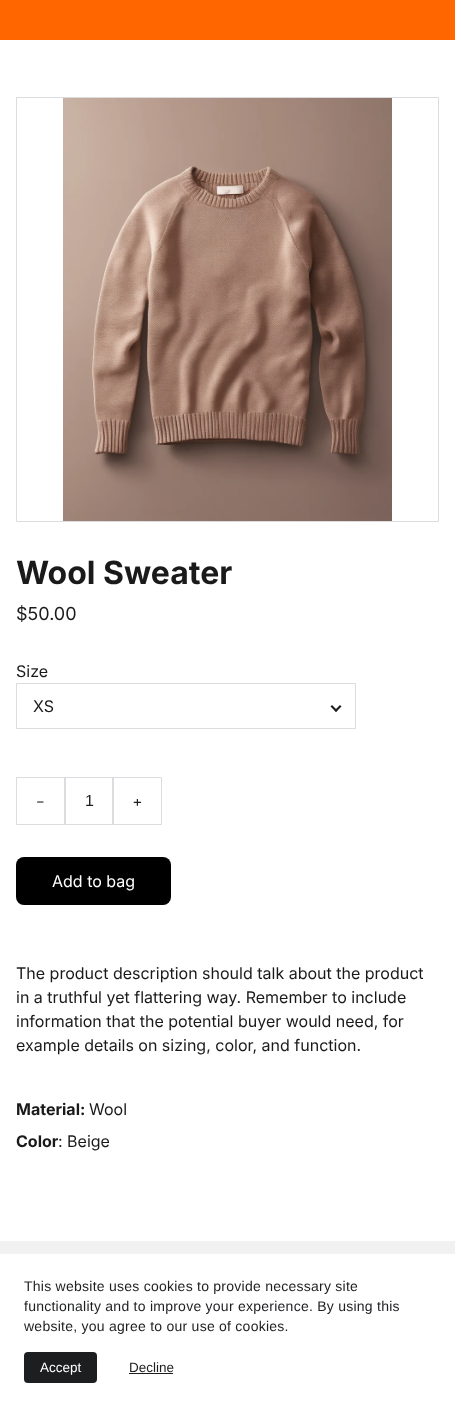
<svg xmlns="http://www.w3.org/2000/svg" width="455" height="1405">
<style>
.a{font:bold 32px Inter;fill:#1a1a1a}
.b{font:18px Inter;fill:#1a1a1a}
.c{font:16px Inter;fill:#1a1a1a}
.d{font:16px DM Sans;fill:#1d1e20}
.e{font:16px Liberation Sans;fill:#1d1e20}
.f{font:16px Inter;fill:#fff}
.g{font:bold 16px Inter;fill:#1a1a1a}
.h{font:14px Liberation Sans;letter-spacing:0.25px;fill:#1d1e20}
.i{font:13.5px Liberation Sans;fill:#fff}
.j{font:13.5px Liberation Sans;fill:#1d1e20}
</style>
<rect width="100%" height="100%" fill="#fff"/>
<path fill="#f60" d="M0 0h455v40H0z"/>
<path fill="none" stroke="#dadce0" d="M16.5 97.5h422v424H16.5z"/>
<image href="1.png" x="63" y="98" width="329" height="423"/>
<path fill="none" stroke="#dadce0" d="M16.5 683.5h339v45H16.5z"/>
<path fill="#1d1e20" d="M341.5 706.5l-5.5 5.5l-1.5-1.5l5.5-5.5z"/>
<path fill="#1d1e20" d="M337.5 710.5l-1.5 1.5l-5.5-5.5l1.5-1.5z"/>
<path fill="none" stroke="#dadce0" d="M16.5 777.5h145v47H16.5z"/>
<path fill="#dadce0" d="M64 778h2v46H64z"/>
<path fill="#dadce0" d="M112 778h2v46H112z"/>
<rect fill="#000" x="16" y="857" width="155" height="48" rx="8"/>
<path fill="#f1f1f1" d="M0 1241h455v12H0z"/>
<path fill="#f2f3f6" d="M0 1253h455v1H0z"/>
<rect fill="#1d1e20" x="24" y="1352" width="73" height="31" rx="4"/>
<path fill="#1d1e20" d="M129 1373h44v1H129z"/>
<text class="a" x="16" y="584">Wool Sweater</text>
<text class="b" x="16" y="620">$50.00</text>
<text class="c" x="16" y="677">Size</text>
<text class="c" x="33" y="712">XS</text>
<text class="d" x="36" y="807">-</text>
<text class="e" x="85" y="806">1</text>
<text class="d" x="133" y="807">+</text>
<text class="f" x="52" y="887">Add to bag</text>
<text class="c" x="16" y="979">The product description should talk about the product</text>
<text class="c" x="16" y="1003">in a truthful yet flattering way. Remember to include</text>
<text class="c" x="16" y="1027">information that the potential buyer would need, for</text>
<text class="c" x="16" y="1051">example details on sizing, color, and function.</text>
<text class="g" x="16" y="1115">Material:</text>
<text class="c" x="89" y="1115">Wool</text>
<text class="g" x="16" y="1147">Color</text>
<text class="c" x="58" y="1147">: Beige</text>
<text class="h" x="24" y="1291">This website uses cookies to provide necessary site</text>
<text class="h" x="24" y="1311">functionality and to improve your experience. By using this</text>
<text class="h" x="24" y="1331">website, you agree to our use of cookies.</text>
<text class="i" x="40" y="1372">Accept</text>
<text class="j" x="129" y="1372">Decline</text>
</svg>
